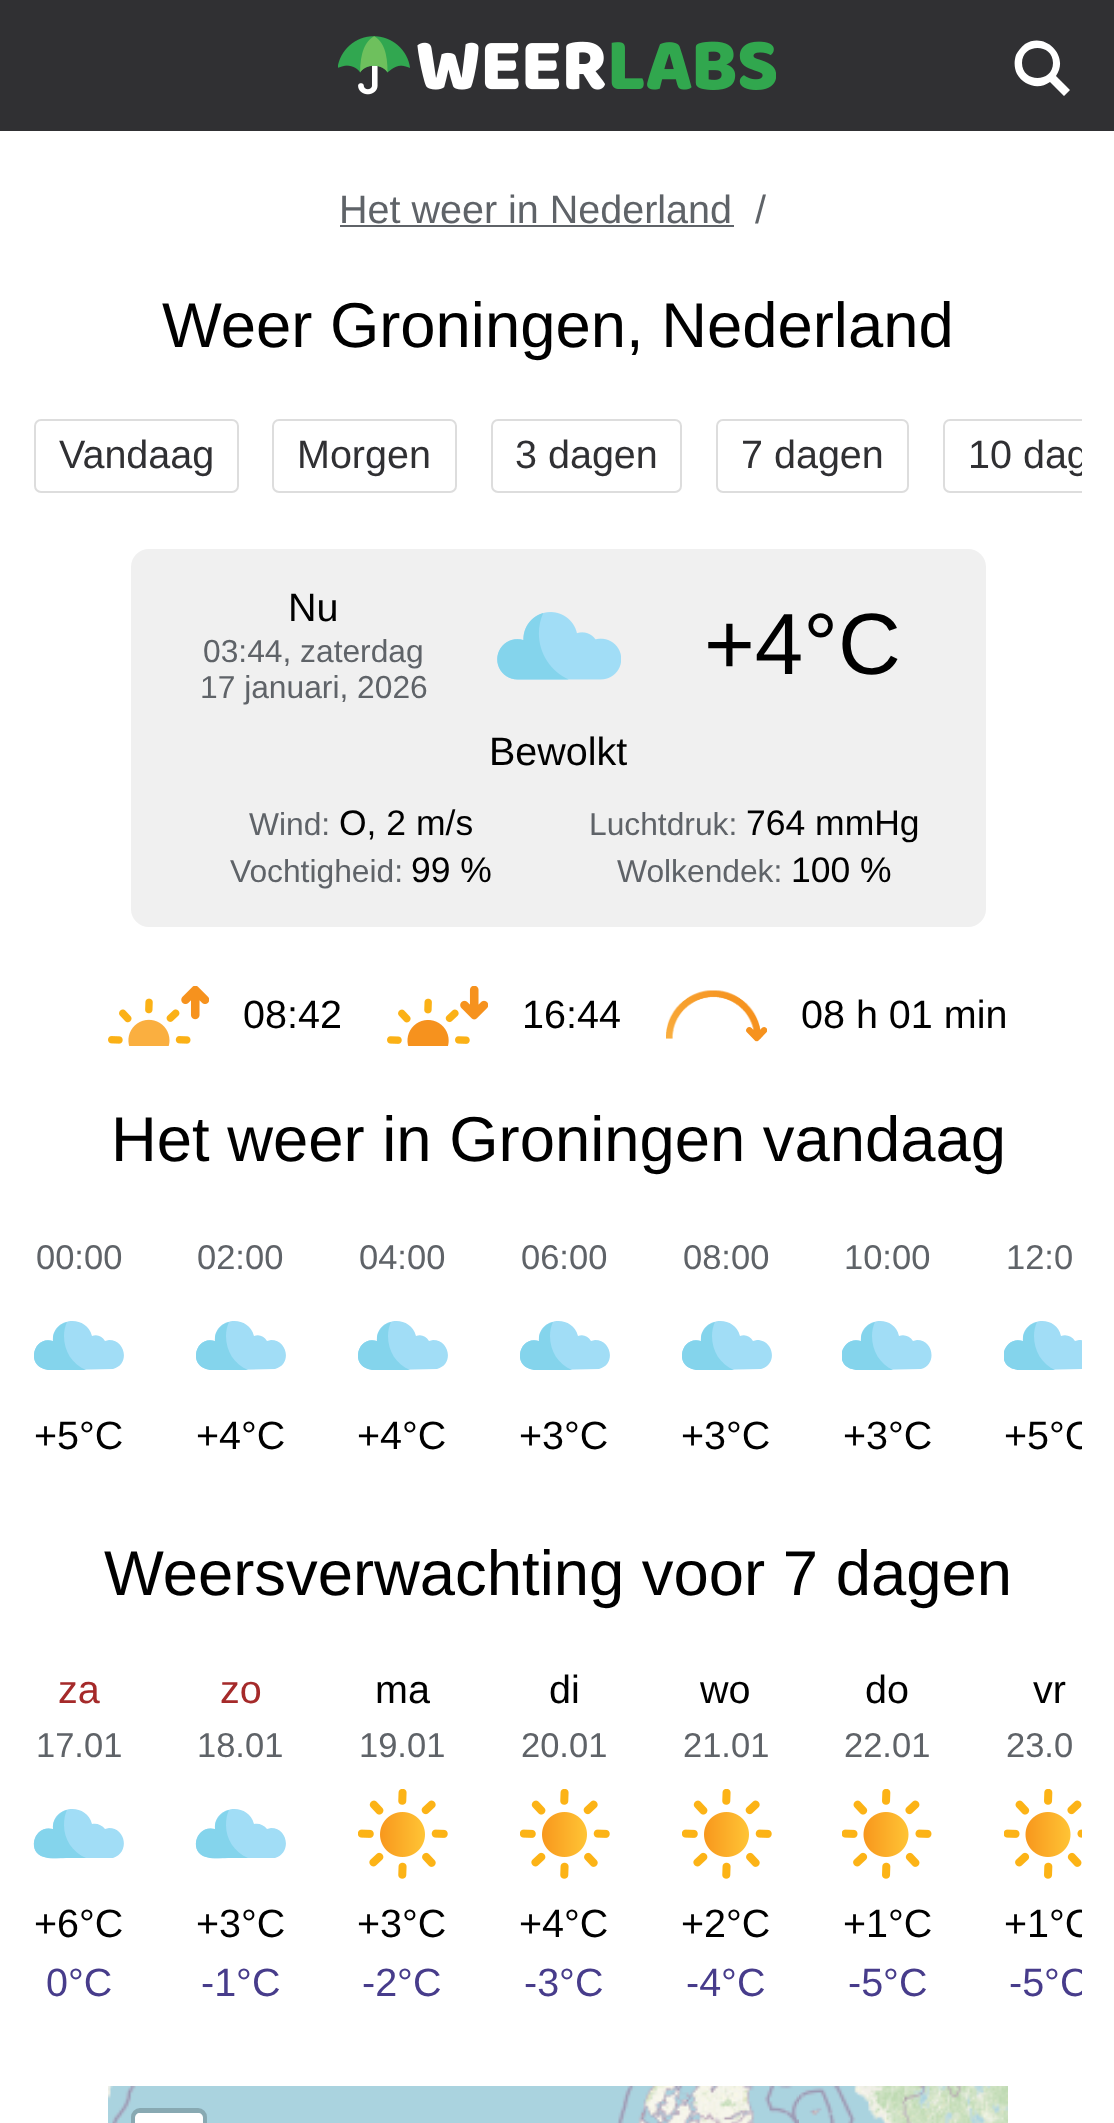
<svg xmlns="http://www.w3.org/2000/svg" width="1114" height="2123">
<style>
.a{font:39.5px Liberation Sans;fill:#5f6368}
.b{font:63.4px Liberation Sans;fill:#000}
.c{font:39.5px Liberation Sans;fill:#303033}
.d{font:39.5px Liberation Sans;fill:#000}
.e{font:31.75px Liberation Sans;fill:#5f6368}
.f{font:87px Liberation Sans;fill:#000}
.g{font:35.5px Liberation Sans;fill:#000}
.h{font:34.5px Liberation Sans;fill:#5f6368}
.i{font:39.5px Liberation Sans;fill:#a52a2a}
.j{font:39.5px Liberation Sans;fill:#473c8b}
</style>
<defs>
<clipPath id="clip1"><path d="M34 419h1048v74H34z"/></clipPath>
<clipPath id="clip2"><path d="M34 1321h90v49H34z"/></clipPath>
<clipPath id="clip3"><path d="M196 1321h90v49H196z"/></clipPath>
<clipPath id="clip4"><path d="M358 1321h90v49H358z"/></clipPath>
<clipPath id="clip5"><path d="M520 1321h90v49H520z"/></clipPath>
<clipPath id="clip6"><path d="M682 1321h90v49H682z"/></clipPath>
<clipPath id="clip7"><path d="M842 1321h90v49H842z"/></clipPath>
<clipPath id="clip8"><path d="M1004 1321h78v49H1004z"/></clipPath>
<clipPath id="clip9"><path d="M34 1233h1048v250H34z"/></clipPath>
<clipPath id="clip10"><path d="M34 1667h1048v363H34z"/></clipPath>
</defs>
<rect width="100%" height="100%" fill="#fff"/>
<path fill="#303033" d="M0 0h1114v131H0z"/>
<image href="1.png" x="338" y="36" width="438" height="59"/>
<path fill="#fff" d="M1056 76l14 14l-6 6l-14-14c-11 8-26 4-33-8c-3-6-3-13-1-19c2-4 5-8 9-11c20-13 45 12 31 32zm-3-13c0-20-31-20-31 0c0 20 31 20 31 0z"/>
<path fill="#5f6368" d="M340 225h394v2H340z"/>
<rect fill="none" stroke="#ddd" stroke-width="2" x="35" y="420" width="203" height="72" rx="6"/>
<rect fill="none" stroke="#ddd" stroke-width="2" x="273" y="420" width="183" height="72" rx="6"/>
<rect fill="none" stroke="#ddd" stroke-width="2" x="492" y="420" width="189" height="72" rx="6"/>
<rect fill="none" stroke="#ddd" stroke-width="2" x="717" y="420" width="191" height="72" rx="6"/>
<g clip-path="url(#clip1)">
<rect fill="none" stroke="#ddd" stroke-width="2" x="944" y="420" width="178" height="72" rx="6"/>
</g>
<rect fill="#f0f0f0" x="131" y="549" width="855" height="378" rx="18"/>
<image href="2.png" x="497" y="612" width="124" height="68"/>
<image href="3.png" x="108" y="986" width="101" height="60"/>
<image href="4.png" x="387" y="986" width="101" height="60"/>
<image href="5.png" x="666" y="990" width="101" height="52"/>
<g clip-path="url(#clip2)">
<path fill="#a1ddf6" d="M109 1340l-4 1c-3-5-8-7-13-5c-6-23-41-18-39 5c-19-6-27 23-9 28c6 2 18 1 25 1l44-1c17-4 13-29-4-29z"/>
<path fill="#84d4ec" d="M64 1336c0-5 1-10 3-14c-8 2-15 10-14 19c-19-6-27 23-9 28c5 2 11 1 17 1h25c-14-6-22-19-22-34z"/>
</g>
<g clip-path="url(#clip3)">
<path fill="#a1ddf6" d="M271 1340l-4 1c-3-5-8-7-13-5c-6-23-41-18-39 5c-19-6-27 23-9 28c6 2 18 1 25 1l44-1c17-4 13-29-4-29z"/>
<path fill="#84d4ec" d="M226 1336c0-5 1-10 3-14c-8 2-15 10-14 19c-19-6-27 23-9 28c5 2 11 1 17 1h25c-14-6-22-19-22-34z"/>
</g>
<g clip-path="url(#clip4)">
<path fill="#a1ddf6" d="M433 1340l-4 1c-3-5-8-7-13-5c-6-23-41-18-39 5c-19-6-27 23-9 28c6 2 18 1 25 1l44-1c17-4 13-29-4-29z"/>
<path fill="#84d4ec" d="M388 1336c0-5 1-10 3-14c-8 2-15 10-14 19c-19-6-27 23-9 28c5 2 11 1 17 1h25c-14-6-22-19-22-34z"/>
</g>
<g clip-path="url(#clip5)">
<path fill="#a1ddf6" d="M595 1340l-4 1c-3-5-8-7-13-5c-6-23-41-18-39 5c-19-6-27 23-9 28c6 2 18 1 25 1l44-1c17-4 13-29-4-29z"/>
<path fill="#84d4ec" d="M550 1336c0-5 1-10 3-14c-8 2-15 10-14 19c-19-6-27 23-9 28c5 2 11 1 17 1h25c-14-6-22-19-22-34z"/>
</g>
<g clip-path="url(#clip6)">
<path fill="#a1ddf6" d="M757 1340l-4 1c-3-5-8-7-13-5c-6-23-41-18-39 5c-19-6-27 23-9 28c6 2 18 1 25 1l44-1c17-4 13-29-4-29z"/>
<path fill="#84d4ec" d="M712 1336c0-5 1-10 3-14c-8 2-15 10-14 19c-19-6-27 23-9 28c5 2 11 1 17 1h25c-14-6-22-19-22-34z"/>
</g>
<g clip-path="url(#clip7)">
<path fill="#a1ddf6" d="M917 1340l-4 1c-3-5-9-7-14-5c-5-23-40-18-38 5c-19-6-28 23-9 28c6 2 18 1 24 1l45-1c16-4 13-29-4-29z"/>
<path fill="#84d4ec" d="M872 1336c0-5 1-10 3-14c-8 2-15 10-14 19c-19-6-28 23-9 28c5 2 11 1 17 1h24c-13-6-21-19-21-34z"/>
</g>
<g clip-path="url(#clip8)">
<path fill="#a1ddf6" d="M1079 1340l-4 1c-3-5-9-7-14-5c-5-23-40-18-38 5c-19-6-28 23-9 28c6 2 18 1 24 1l45-1c16-4 13-29-4-29z"/>
<path fill="#84d4ec" d="M1034 1336c0-5 1-10 3-14c-8 2-15 10-14 19c-19-6-28 23-9 28c5 2 11 1 17 1h24c-13-6-21-19-21-34z"/>
</g>
<path fill="#a1ddf6" d="M109 1828l-4 1c-3-4-8-6-13-5c-6-23-41-18-39 5c-19-5-27 23-9 28c6 2 18 1 25 1h44c17-5 13-30-4-30z"/>
<path fill="#84d4ec" d="M64 1825c0-6 1-11 3-15c-8 2-15 10-14 19c-19-5-27 23-9 28c5 2 11 1 17 1h25c-14-6-22-19-22-33z"/>
<path fill="#a1ddf6" d="M271 1828l-4 1c-3-4-8-6-13-5c-6-23-41-18-39 5c-19-5-27 23-9 28c6 2 18 1 25 1h44c17-5 13-30-4-30z"/>
<path fill="#84d4ec" d="M226 1825c0-6 1-11 3-15c-8 2-15 10-14 19c-19-5-27 23-9 28c5 2 11 1 17 1h25c-14-6-22-19-22-33z"/>
<image href="6.png" x="358" y="1789" width="90" height="90"/>
<image href="6.png" x="520" y="1789" width="90" height="90"/>
<image href="6.png" x="682" y="1789" width="90" height="90"/>
<image href="7.png" x="842" y="1789" width="90" height="90"/>
<image href="8.png" x="1004" y="1789" width="78" height="90"/>
<image href="9.png" x="108" y="2086" width="115" height="37"/>
<image href="10.png" x="223" y="2086" width="576" height="37"/>
<image href="11.png" x="799" y="2086" width="209" height="37"/>
<rect fill="none" stroke="#88a9b2" stroke-width="5" x="133.5" y="2110.5" width="71" height="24" rx="6.5"/>
<path fill="#fff" d="M140 2113h58c3 0 5 2 5 5v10h-68v-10c0-3 2-5 5-5z"/>
<text class="a" x="339" y="223">Het weer in Nederland</text>
<text class="a" x="755" y="223">/</text>
<text class="b" x="162" y="347">Weer Groningen, Nederland</text>
<text class="c" x="59" y="468">Vandaag</text>
<text class="c" x="297" y="468">Morgen</text>
<text class="c" x="515" y="468">3 dagen</text>
<text class="c" x="741" y="468">7 dagen</text>
<g clip-path="url(#clip1)">
<text class="c" x="968" y="468">10 dag</text>
</g>
<text class="d" x="288" y="621">Nu</text>
<text class="e" x="203" y="662">03:44, zaterdag</text>
<text class="e" x="200" y="698">17 januari, 2026</text>
<text class="f" x="704" y="674">+4°C</text>
<text class="d" x="489" y="765">Bewolkt</text>
<text class="e" x="249" y="835">Wind:</text>
<text class="g" x="339" y="835">O, 2 m/s</text>
<text class="e" x="589" y="835">Luchtdruk:</text>
<text class="g" x="746" y="835">764 mmHg</text>
<text class="e" x="230" y="882">Vochtigheid:</text>
<text class="g" x="411" y="882">99 %</text>
<text class="e" x="617" y="882">Wolkendek:</text>
<text class="g" x="791" y="882">100 %</text>
<text class="d" x="243" y="1028">08:42</text>
<text class="d" x="522" y="1028">16:44</text>
<text class="d" x="801" y="1028">08 h 01 min</text>
<text class="b" x="111" y="1161">Het weer in Groningen vandaag</text>
<text class="h" x="36" y="1269">00:00</text>
<text class="d" x="34" y="1449">+5°C</text>
<text class="h" x="197" y="1269">02:00</text>
<text class="d" x="196" y="1449">+4°C</text>
<text class="h" x="359" y="1269">04:00</text>
<text class="d" x="357" y="1449">+4°C</text>
<text class="h" x="521" y="1269">06:00</text>
<text class="d" x="519" y="1449">+3°C</text>
<text class="h" x="683" y="1269">08:00</text>
<text class="d" x="681" y="1449">+3°C</text>
<text class="h" x="844" y="1269">10:00</text>
<text class="d" x="843" y="1449">+3°C</text>
<text class="h" x="1006" y="1269">12:0</text>
<g clip-path="url(#clip9)">
<text class="d" x="1004" y="1449">+5°C</text>
</g>
<text class="b" x="104" y="1595">Weersverwachting voor 7 dagen</text>
<text class="i" x="58" y="1703">za</text>
<text class="h" x="36" y="1757">17.01</text>
<text class="d" x="34" y="1937">+6°C</text>
<text class="j" x="46" y="1996">0°C</text>
<text class="i" x="220" y="1703">zo</text>
<text class="h" x="197" y="1757">18.01</text>
<text class="d" x="196" y="1937">+3°C</text>
<text class="j" x="201" y="1996">-1°C</text>
<text class="d" x="375" y="1703">ma</text>
<text class="h" x="359" y="1757">19.01</text>
<text class="d" x="357" y="1937">+3°C</text>
<text class="j" x="362" y="1996">-2°C</text>
<text class="d" x="549" y="1703">di</text>
<text class="h" x="521" y="1757">20.01</text>
<text class="d" x="519" y="1937">+4°C</text>
<text class="j" x="524" y="1996">-3°C</text>
<text class="d" x="700" y="1703">wo</text>
<text class="h" x="683" y="1757">21.01</text>
<text class="d" x="681" y="1937">+2°C</text>
<text class="j" x="686" y="1996">-4°C</text>
<text class="d" x="865" y="1703">do</text>
<text class="h" x="844" y="1757">22.01</text>
<text class="d" x="843" y="1937">+1°C</text>
<text class="j" x="848" y="1996">-5°C</text>
<text class="d" x="1033" y="1703">vr</text>
<text class="h" x="1006" y="1757">23.0</text>
<g clip-path="url(#clip10)">
<text class="d" x="1004" y="1937">+1°C</text>
<text class="j" x="1009" y="1996">-5°C</text>
</g>
</svg>
